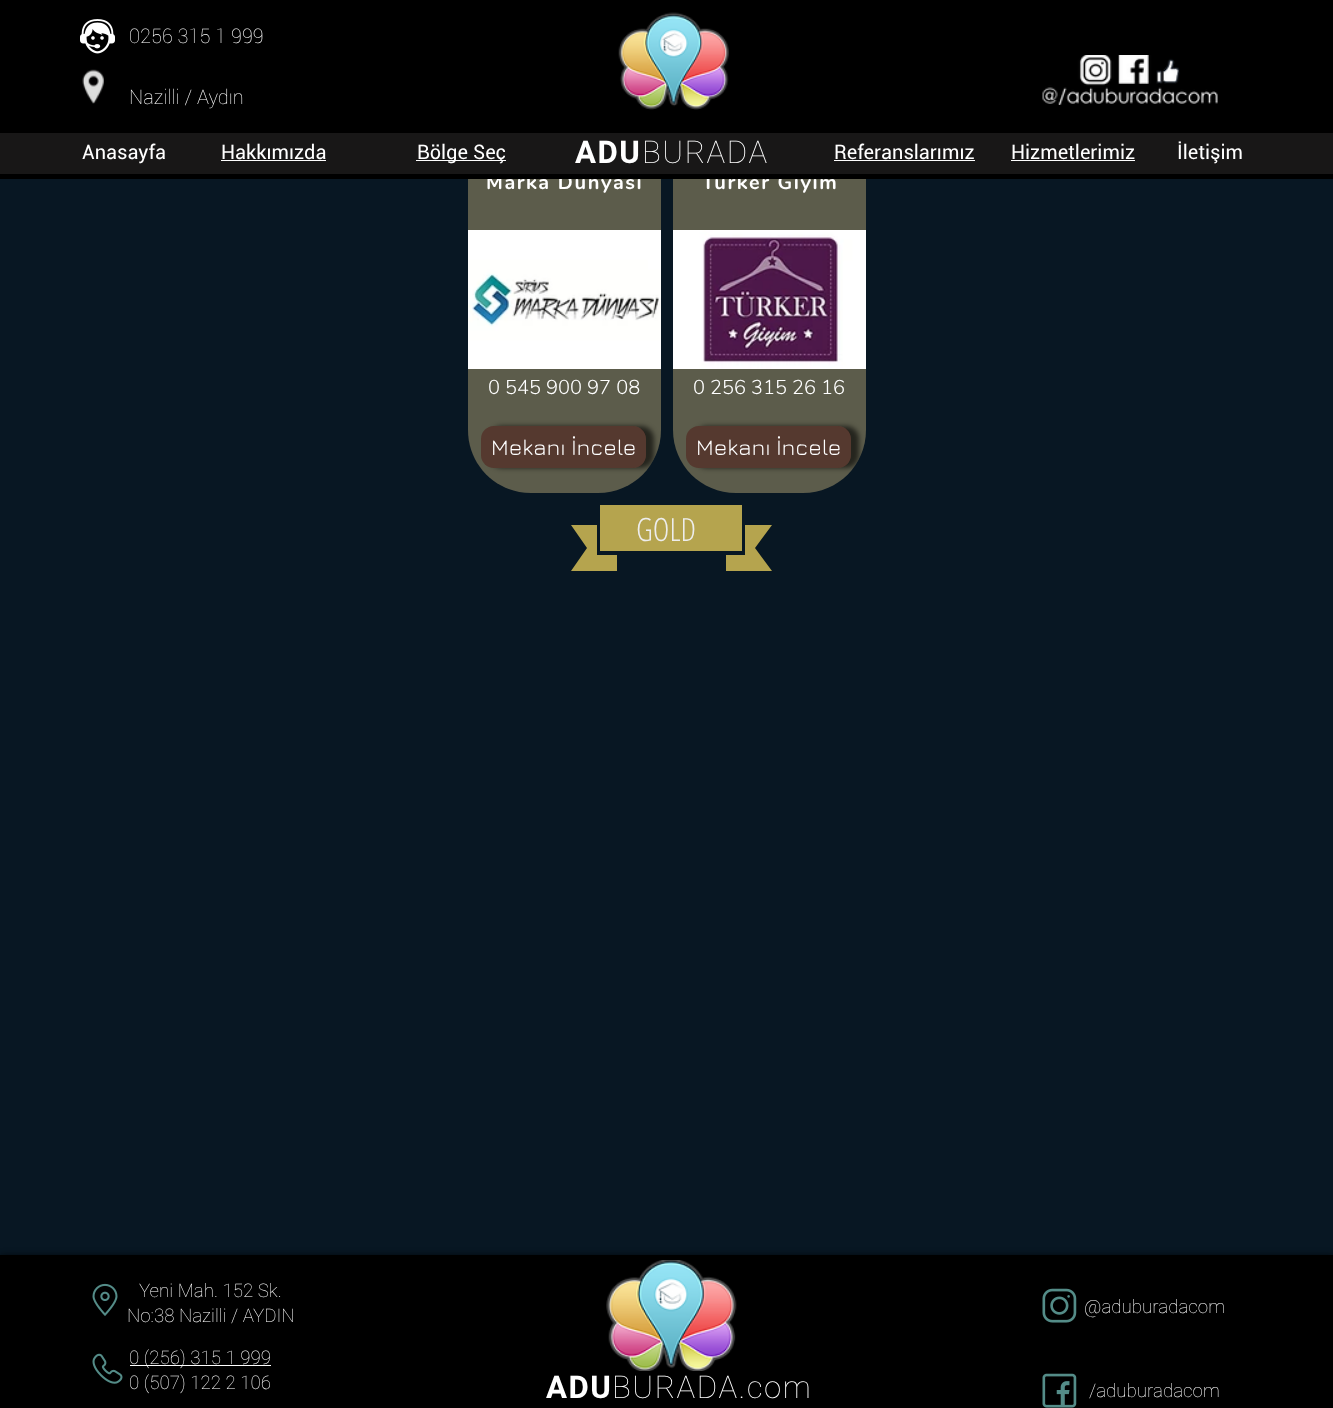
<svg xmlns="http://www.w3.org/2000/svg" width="1333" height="1408">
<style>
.a{font:bold 20px Nunito;letter-spacing:1.6px;fill:#fff}
.b{font:300 20px Nunito;fill:#fff}
.c{font:22.5px Jura;fill:#fff}
.d{font:20px Roboto;fill:#fff}
.e{font:100 31.25px Roboto;letter-spacing:1.5px;fill:#fff}
.f{font:bold 31.25px Roboto;letter-spacing:1.5px;fill:#fff}
.g{font:100 20px 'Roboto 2';fill:#fff}
.h{font:300 32px Open Sans Condensed;fill:#ededed}
.i{font:100 18.75px Roboto;fill:#fff}
</style>
<defs>
<clipPath id="clip1"><path d="M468 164h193v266c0 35-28 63-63 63h-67c-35 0-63-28-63-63z"/></clipPath>
<clipPath id="clip2"><path d="M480 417h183v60h-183zm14 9h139c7 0 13 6 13 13v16c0 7-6 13-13 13h-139c-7 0-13-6-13-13v-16c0-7 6-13 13-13z" clip-rule="evenodd"/></clipPath>
<clipPath id="clip3"><path d="M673 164h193v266c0 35-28 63-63 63h-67c-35 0-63-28-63-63z"/></clipPath>
<clipPath id="clip4"><path d="M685 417h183v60h-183zm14 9h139c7 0 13 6 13 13v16c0 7-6 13-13 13h-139c-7 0-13-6-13-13v-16c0-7 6-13 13-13z" clip-rule="evenodd"/></clipPath>
</defs>
<rect width="100%" height="100%" fill="#081723"/>
<path fill="#5c5c4b" d="M468 164h193v266c0 35-28 63-63 63h-67c-35 0-63-28-63-63z"/>
<image href="5.png" x="468" y="230" width="193" height="139"/>
<g clip-path="url(#clip1)">
<g clip-path="url(#clip2)">
<rect fill="#00000099" filter="blur(2.5px)" x="489" y="426" width="165" height="42" rx="13"/>
</g>
</g>
<rect fill="#4a040466" x="481" y="426" width="165" height="42" rx="13"/>
<path fill="#5c5c4b" d="M673 164h193v266c0 35-28 63-63 63h-67c-35 0-63-28-63-63z"/>
<image href="6.png" x="673" y="230" width="193" height="139"/>
<g clip-path="url(#clip3)">
<g clip-path="url(#clip4)">
<rect fill="#00000099" filter="blur(2.5px)" x="694" y="426" width="165" height="42" rx="13"/>
</g>
</g>
<rect fill="#4a040466" x="686" y="426" width="165" height="42" rx="13"/>
<path fill="#b5a44e" d="M742 505h-142v46h142zm30 20h-27v30h-19v16h46l-17-23zm-175 0h-26l16 23l-16 23h46v-16h-20z"/>
<path fill="#00000099" filter="blur(3px)" d="M0 1255h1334v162H0z"/>
<path fill="#000" d="M0 1255h1333v153H0z"/>
<image href="7.png" x="606" y="1260" width="131" height="111"/>
<image href="8.png" x="1042" y="1288" width="35" height="35"/>
<image href="9.png" x="92" y="1283" width="26" height="33"/>
<image href="10.png" x="92" y="1353" width="31" height="31"/>
<path fill="#fff" d="M130 1365h141v1H130z"/>
<image href="11.png" x="1042" y="1373" width="35" height="35"/>
<text class="a" x="486" y="189">Marka Dünyası</text>
<text class="b" x="488" y="394">0 545 900 97 08</text>
<text class="c" x="491" y="455">Mekanı İncele</text>
<text class="a" x="702" y="189">Türker Giyim</text>
<path fill="#000" d="M0 0h1333v179H0z"/>
<path fill="#181717" d="M0 133h1333v41H0z"/>
<text class="d" x="1177" y="159">İletişim</text>
<text class="d" x="1011" y="159">Hizmetlerimiz</text>
<path fill="#fff" d="M1011 160h124v1H1011z"/>
<text class="d" x="834" y="159">Referanslarımız</text>
<path fill="#fff" d="M834 160h141v1H834z"/>
<text class="e" x="642" y="163">BURADA</text>
<text class="f" x="575" y="163">ADU</text>
<path fill="#fff" d="M416 160h90v1H416z"/>
<text class="d" x="417" y="159">Bölge Seç</text>
<text class="d" x="221" y="159">Hakkımızda</text>
<path fill="#fff" d="M221 160h105v1H221z"/>
<text class="d" x="82" y="159">Anasayfa</text>
<image href="4.png" x="1042" y="55" width="176" height="50"/>
<image href="2.png" x="618" y="12" width="111" height="98"/>
<text class="g" x="129" y="104">Nazilli / Aydın</text>
<image href="3.png" x="82" y="69" width="22" height="35"/>
<text class="g" x="129" y="43">0256 315 1 999</text>
<image href="1.png" x="80" y="19" width="35" height="35"/>
<text class="b" x="693" y="394">0 256 315 26 16</text>
<text class="c" x="696" y="455">Mekanı İncele</text>
<text class="h" x="636" y="541">GOLD</text>
<text class="i" x="139" y="1297">Yeni Mah. 152 Sk.</text>
<text class="i" x="127" y="1322">No:38 Nazilli / AYDIN</text>
<text class="i" x="1084" y="1313">@aduburadacom</text>
<text class="i" x="129" y="1364">0 (256) 315 1 999</text>
<text class="i" x="129" y="1389">0 (507) 122 2 106</text>
<text class="f" x="546" y="1398">ADU</text>
<text class="e" x="612" y="1398">BURADA.com</text>
<text class="i" x="1089" y="1397">/aduburadacom</text>
</svg>
